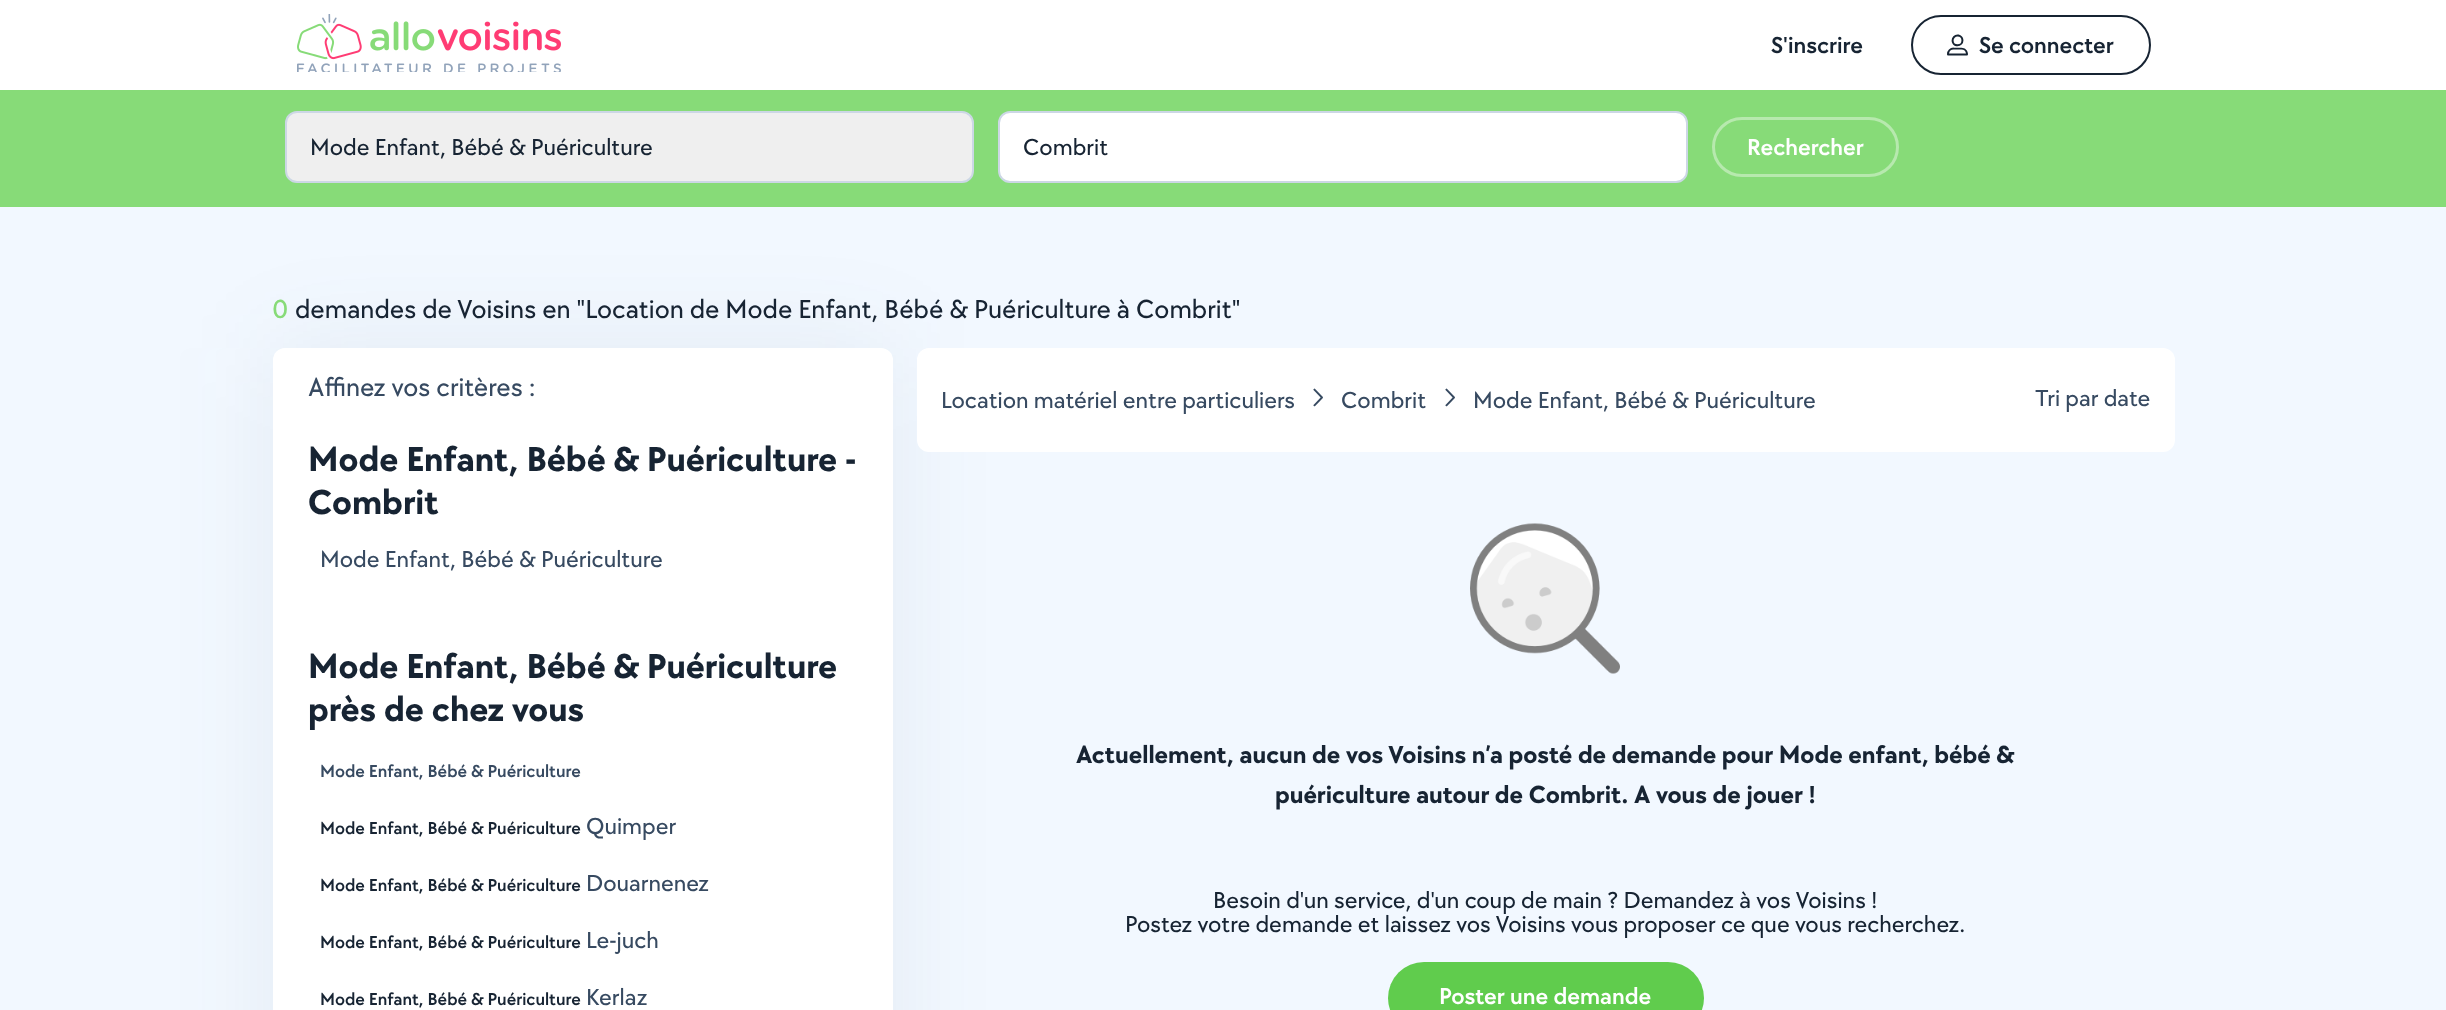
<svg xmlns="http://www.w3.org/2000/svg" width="2446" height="1010">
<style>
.a{font:600 24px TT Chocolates;fill:#172433}
.b{font:500 24px TT Chocolates;fill:#172433}
.c{font:600 24px TT Chocolates;fill:#fff}
.d{font:500 27px TT Chocolates;fill:#87db78}
.e{font:500 27px TT Chocolates;fill:#172433}
.f{font:500 27px TT Chocolates;fill:#374a61}
.g{font:bold 36px TT Chocolates;fill:#172433}
.h{font:500 24px TT Chocolates;fill:#374a61}
.i{font:600 18px TT Chocolates;fill:#374a61}
.j{font:600 18px TT Chocolates;fill:#172433}
.k{font:bold 25.5px TT Chocolates;fill:#172433}
</style>
<rect width="100%" height="100%" fill="#f2f8ff"/>
<path fill="#fff" d="M0 0h2446v90H0z"/>
<image href="1.png" x="297" y="14" width="264" height="58"/>
<rect fill="none" stroke="#172433" stroke-width="2" x="1912" y="16" width="238" height="58" rx="29"/>
<image href="2.png" x="1947" y="34" width="21" height="22"/>
<path fill="#87db78" d="M0 90h2446v117H0z"/>
<rect fill="#efefef" stroke="#ccd7e5" stroke-width="2" x="286" y="112" width="687" height="70" rx="11"/>
<rect fill="#fff" stroke="#ccd7e5" stroke-width="2" x="999" y="112" width="688" height="70" rx="11"/>
<rect fill="none" stroke="#b7e9ae" stroke-width="3" x="1713.5" y="118.5" width="184" height="57" rx="28.5"/>
<rect fill="#374a6114" filter="blur(51px)" x="273" y="348" width="620" height="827" rx="12"/>
<rect fill="#fff" x="273" y="348" width="620" height="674" rx="12"/>
<rect fill="#fff" x="917" y="348" width="1258" height="104" rx="12"/>
<image href="3.png" x="1313" y="388" width="10" height="19"/>
<image href="3.png" x="1445" y="388" width="10" height="19"/>
<image href="4.png" x="1470" y="523" width="150" height="151"/>
<rect fill="#60cc4d" x="1388" y="962" width="316" height="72" rx="36"/>
<text class="a" x="1771" y="53">S'inscrire</text>
<text class="a" x="1979" y="53">Se connecter</text>
<text class="b" x="310" y="155">Mode Enfant, Bébé &amp; Puériculture</text>
<text class="b" x="1023" y="155">Combrit</text>
<text class="c" x="1747" y="155">Rechercher</text>
<text class="d" x="272" y="318">0</text>
<text class="e" x="295" y="318">demandes de Voisins en "Location de Mode Enfant, Bébé &amp; Puériculture à Combrit"</text>
<text class="f" x="308" y="396">Affinez vos critères :</text>
<text class="g" x="308" y="471">Mode Enfant, Bébé &amp; Puériculture -</text>
<text class="g" x="308" y="514">Combrit</text>
<text class="h" x="320" y="567">Mode Enfant, Bébé &amp; Puériculture</text>
<text class="g" x="308" y="678">Mode Enfant, Bébé &amp; Puériculture</text>
<text class="g" x="308" y="721">près de chez vous</text>
<text class="i" x="320" y="777">Mode Enfant, Bébé &amp; Puériculture</text>
<text class="j" x="320" y="834">Mode Enfant, Bébé &amp; Puériculture</text>
<text class="h" x="586" y="834">Quimper</text>
<text class="j" x="320" y="891">Mode Enfant, Bébé &amp; Puériculture</text>
<text class="h" x="586" y="891">Douarnenez</text>
<text class="j" x="320" y="948">Mode Enfant, Bébé &amp; Puériculture</text>
<text class="h" x="586" y="948">Le-juch</text>
<text class="j" x="320" y="1005">Mode Enfant, Bébé &amp; Puériculture</text>
<text class="h" x="586" y="1005">Kerlaz</text>
<text class="h" x="941" y="408">Location matériel entre particuliers</text>
<text class="h" x="1341" y="408">Combrit</text>
<text class="h" x="1473" y="408">Mode Enfant, Bébé &amp; Puériculture</text>
<text class="h" x="2035" y="406">Tri par date</text>
<text class="k" x="1076" y="763">Actuellement, aucun de vos Voisins n’a posté de demande pour Mode enfant, bébé &amp;</text>
<text class="k" x="1275" y="803">puériculture autour de Combrit. A vous de jouer !</text>
<text class="b" x="1213" y="908">Besoin d'un service, d'un coup de main ? Demandez à vos Voisins !</text>
<text class="b" x="1125" y="932">Postez votre demande et laissez vos Voisins vous proposer ce que vous recherchez.</text>
<text class="c" x="1439" y="1004">Poster une demande</text>
</svg>
